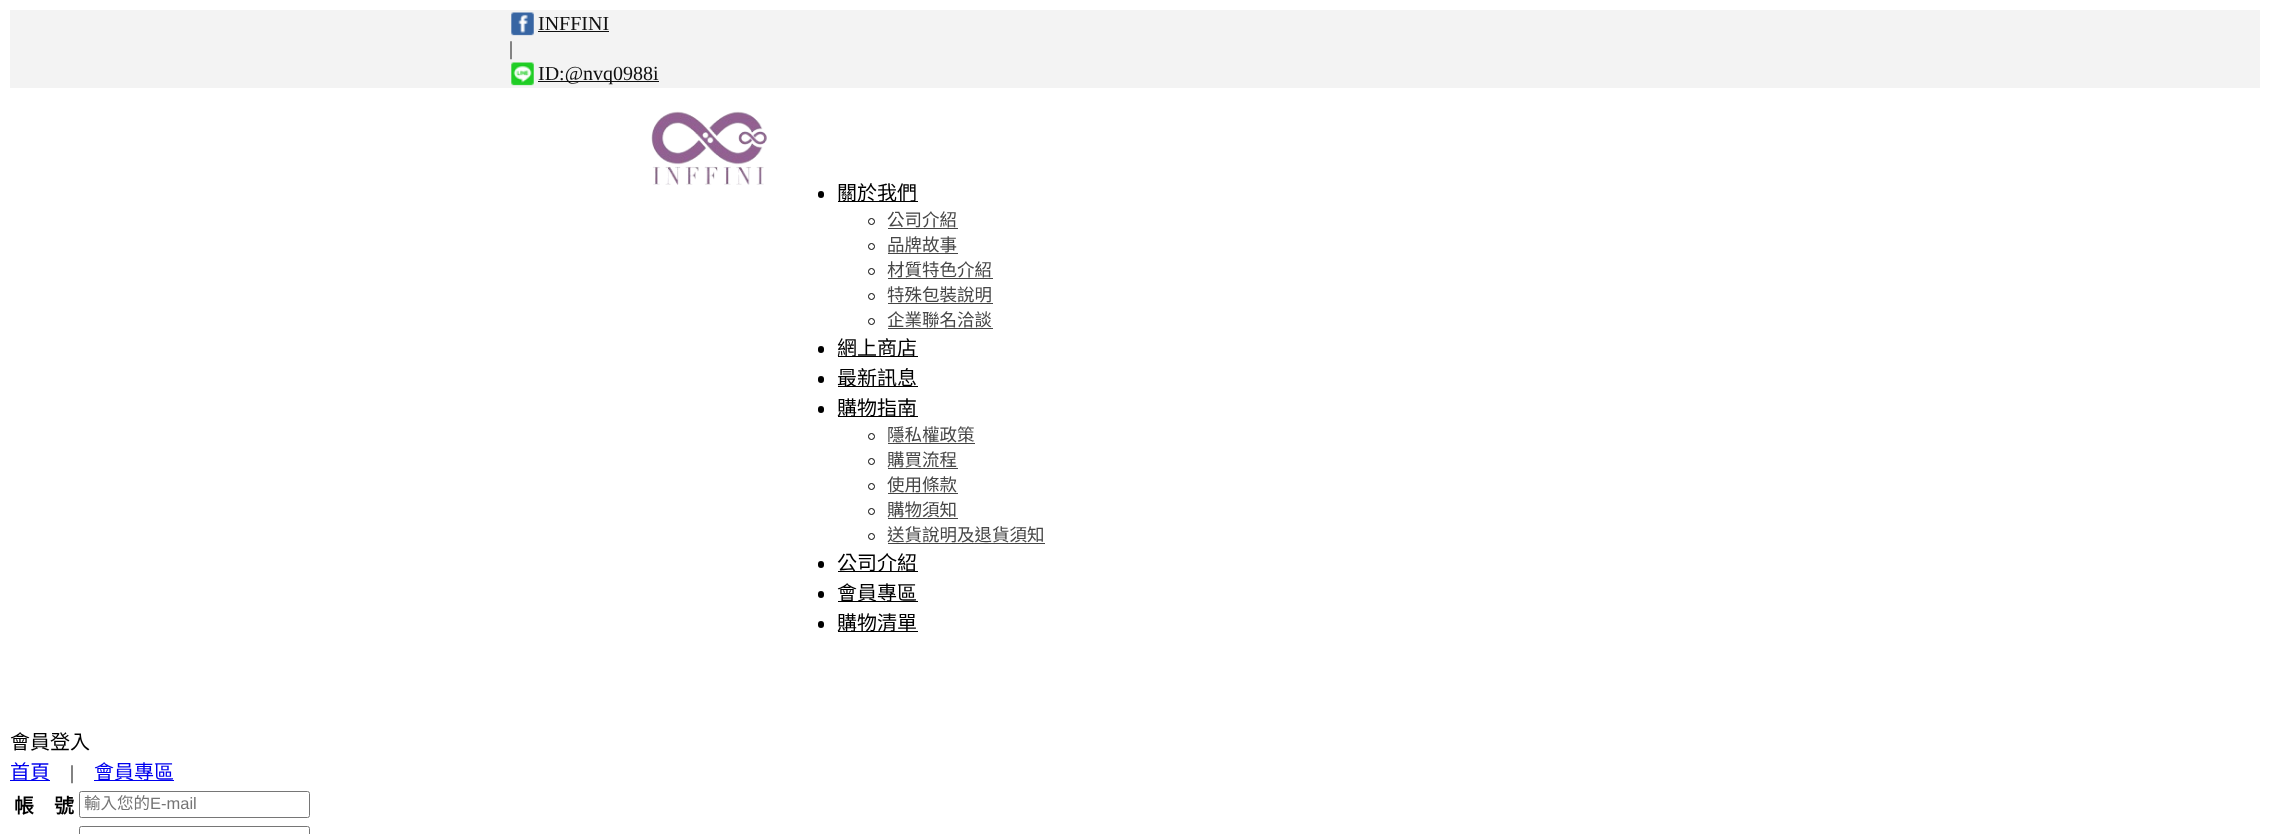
<svg xmlns="http://www.w3.org/2000/svg" width="2269" height="834">
<style>
.a{font:20px Liberation Serif;fill:#101010}
.b{font:20px Noto Sans CJK TC;fill:#000}
.c{font:17.5px Noto Sans CJK TC;fill:#464646}
.d{font:20px Noto Sans CJK TC;fill:#00e}
.e{font:20px Liberation Serif;fill:#000}
.f{font:bold 20px Noto Sans CJK TC;fill:#000}
.g{font:16.5px Noto Sans CJK TC;fill:#757575}
.h{font:16.5px Liberation Sans;fill:#757575}
</style>
<rect width="100%" height="100%" fill="#fff"/>
<path fill="#f3f3f3" d="M10 10h2250v78H10z"/>
<image href="1.png" x="511" y="12" width="23" height="24"/>
<path fill="#101010" d="M538 31h71v1H538z"/>
<image href="2.png" x="511" y="62" width="23" height="24"/>
<path fill="#101010" d="M538 81h121v1H538z"/>
<image href="3.png" x="651" y="111" width="116" height="74"/>
<rect fill="#000" x="818" y="191" width="6" height="7" rx="3"/>
<path fill="#000" d="M838 201h80v1H838z"/>
<circle fill="none" stroke="#000" cx="871.5" cy="221.5" r="3"/>
<path fill="#464646" d="M888 228h70v1H888z"/>
<circle fill="none" stroke="#000" cx="871.5" cy="246.5" r="3"/>
<path fill="#464646" d="M888 253h70v1H888z"/>
<circle fill="none" stroke="#000" cx="871.5" cy="271.5" r="3"/>
<path fill="#464646" d="M888 278h105v1H888z"/>
<circle fill="none" stroke="#000" cx="871.5" cy="296.5" r="3"/>
<path fill="#464646" d="M888 303h105v1H888z"/>
<circle fill="none" stroke="#000" cx="871.5" cy="321.5" r="3"/>
<path fill="#464646" d="M888 328h105v1H888z"/>
<rect fill="#000" x="818" y="346" width="6" height="7" rx="3"/>
<path fill="#000" d="M838 356h80v1H838z"/>
<rect fill="#000" x="818" y="376" width="6" height="7" rx="3"/>
<path fill="#000" d="M838 386h80v1H838z"/>
<rect fill="#000" x="818" y="406" width="6" height="7" rx="3"/>
<path fill="#000" d="M838 416h80v1H838z"/>
<circle fill="none" stroke="#000" cx="871.5" cy="436.5" r="3"/>
<path fill="#464646" d="M888 443h87v1H888z"/>
<circle fill="none" stroke="#000" cx="871.5" cy="461.5" r="3"/>
<path fill="#464646" d="M888 468h70v1H888z"/>
<circle fill="none" stroke="#000" cx="871.5" cy="486.5" r="3"/>
<path fill="#464646" d="M888 493h70v1H888z"/>
<circle fill="none" stroke="#000" cx="871.5" cy="511.5" r="3"/>
<path fill="#464646" d="M888 518h70v1H888z"/>
<circle fill="none" stroke="#000" cx="871.5" cy="536.5" r="3"/>
<path fill="#464646" d="M888 543h157v1H888z"/>
<rect fill="#000" x="818" y="561" width="6" height="7" rx="3"/>
<path fill="#000" d="M838 571h80v1H838z"/>
<rect fill="#000" x="818" y="591" width="6" height="7" rx="3"/>
<path fill="#000" d="M838 601h80v1H838z"/>
<rect fill="#000" x="818" y="621" width="6" height="7" rx="3"/>
<path fill="#000" d="M838 631h80v1H838z"/>
<path fill="#00e" d="M10 780h40v1H10z"/>
<path fill="#00e" d="M94 780h80v1H94z"/>
<rect fill="none" stroke="#767676" x="79.5" y="791.5" width="230" height="26" rx="2"/>
<rect fill="none" stroke="#767676" x="79.5" y="826.5" width="230" height="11" rx="2"/>
<text class="a" x="538" y="30">INFFINI</text>
<text class="a" x="509" y="55">|</text>
<text class="a" x="538" y="80">ID:@nvq0988i</text>
<text class="b" x="837" y="200">關於我們</text>
<text class="c" x="887" y="226">公司介紹</text>
<text class="c" x="887" y="251">品牌故事</text>
<text class="c" x="887" y="276">材質特色介紹</text>
<text class="c" x="887" y="301">特殊包裝說明</text>
<text class="c" x="887" y="326">企業聯名洽談</text>
<text class="b" x="837" y="355">網上商店</text>
<text class="b" x="837" y="385">最新訊息</text>
<text class="b" x="837" y="415">購物指南</text>
<text class="c" x="887" y="441">隱私權政策</text>
<text class="c" x="887" y="466">購買流程</text>
<text class="c" x="887" y="491">使用條款</text>
<text class="c" x="887" y="516">購物須知</text>
<text class="c" x="887" y="541">送貨說明及退貨須知</text>
<text class="b" x="837" y="570">公司介紹</text>
<text class="b" x="837" y="600">會員專區</text>
<text class="b" x="837" y="630">購物清單</text>
<text class="b" x="10" y="749">會員登入</text>
<text class="d" x="10" y="779">首頁</text>
<text class="e" x="70" y="779">|</text>
<text class="d" x="94" y="779">會員專區</text>
<text class="f" x="14" y="813">帳　號</text>
<text class="g" x="84" y="809">輸入您的</text>
<text class="h" x="150" y="809">E-mail</text>
</svg>
